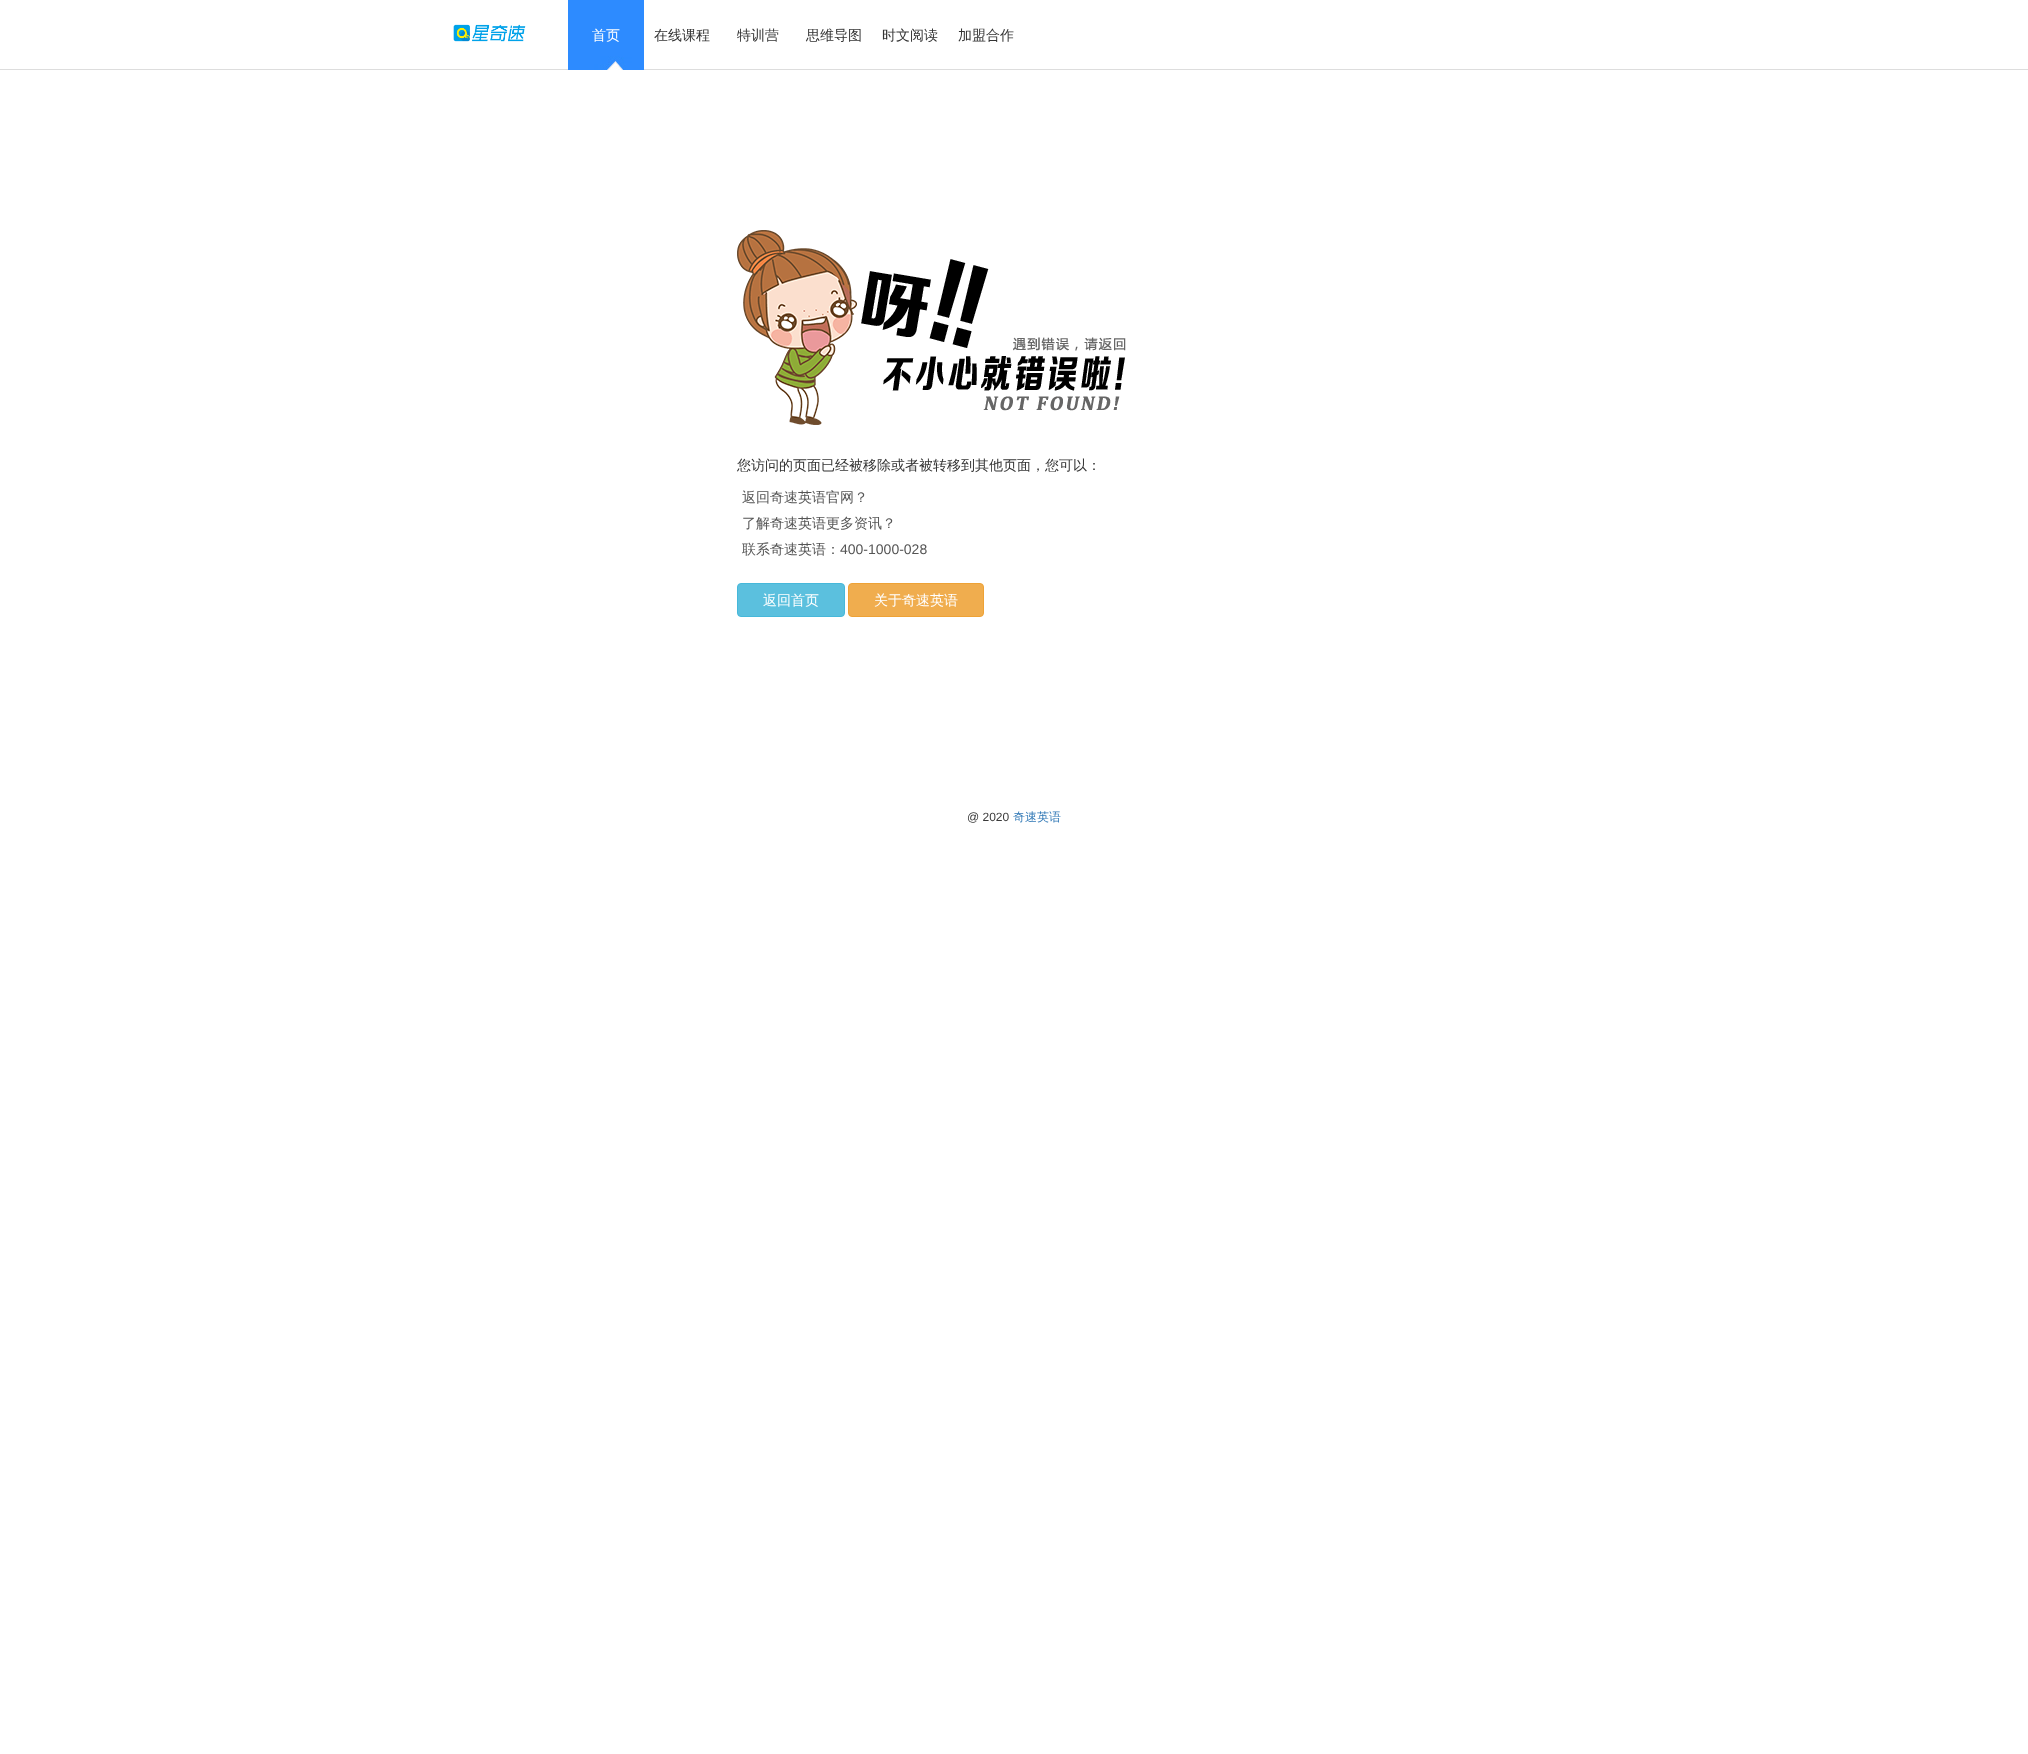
<svg xmlns="http://www.w3.org/2000/svg" width="2028" height="1754">
<style>
.a{font:500 14px WenQuanYi Zen Hei;fill:#fff}
.b{font:500 14px WenQuanYi Zen Hei;fill:#333}
.c{font:500 14px WenQuanYi Zen Hei;fill:#555}
.d{font:14px Liberation Sans;fill:#555}
.e{font:12px Liberation Sans;fill:#393939}
.f{font:500 12px WenQuanYi Zen Hei;fill:#337ab7}
</style>
<rect width="100%" height="100%" fill="#fff"/>
<path fill="#ddd" d="M0 69h2028v1H0z"/>
<image href="1.png" x="453" y="24" width="73" height="18"/>
<image href="2.png" x="568" y="0" width="76" height="70"/>
<image href="3.png" x="737" y="230" width="389" height="195"/>
<rect fill="#5bc0de" stroke="#46b8da" x="737.5" y="583.5" width="107" height="33" rx="3.5"/>
<rect fill="#f0ad4e" stroke="#eea236" x="848.5" y="583.5" width="135" height="33" rx="3.5"/>
<text class="a" x="592" y="40">首页</text>
<text class="b" x="654" y="40">在线课程</text>
<text class="b" x="737" y="40">特训营</text>
<text class="b" x="806" y="40">思维导图</text>
<text class="b" x="882" y="40">时文阅读</text>
<text class="b" x="958" y="40">加盟合作</text>
<text class="b" x="737" y="470">您访问的页面已经被移除或者被转移到其他页面，您可以：</text>
<text class="c" x="742" y="502">返回奇速英语官网？</text>
<text class="c" x="742" y="528">了解奇速英语更多资讯？</text>
<text class="c" x="742" y="554">联系奇速英语：</text>
<text class="d" x="840" y="554">400-1000-028</text>
<text class="a" x="763" y="605">返回首页</text>
<text class="a" x="874" y="605">关于奇速英语</text>
<text class="e" x="967" y="821">@ 2020</text>
<text class="f" x="1013" y="821">奇速英语</text>
</svg>
